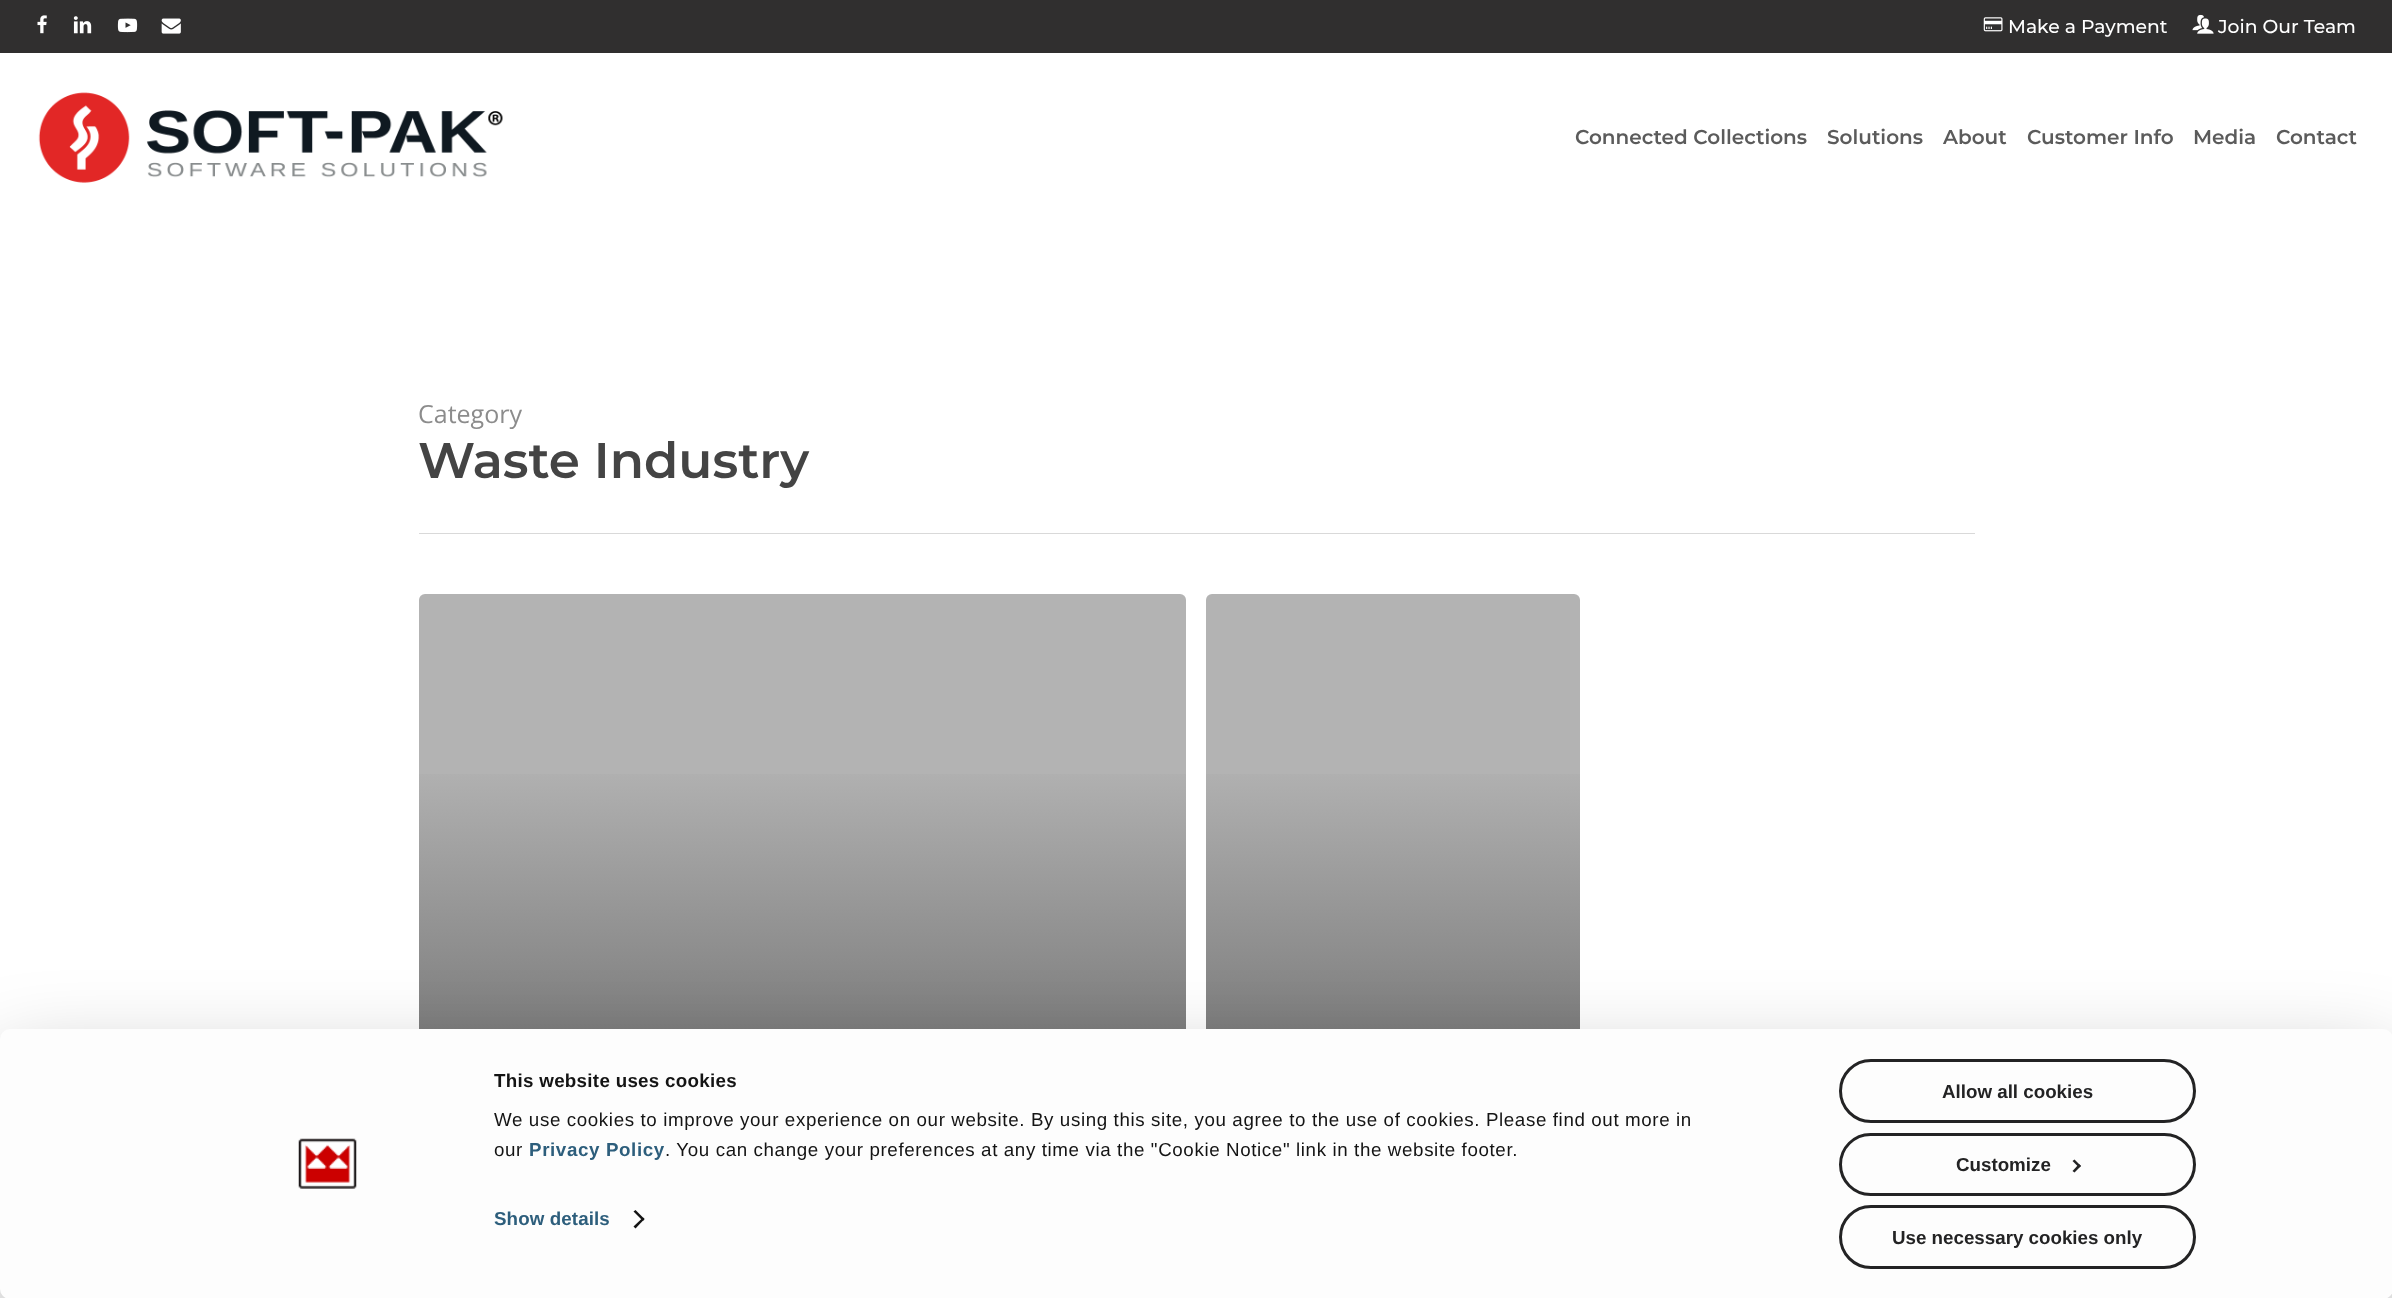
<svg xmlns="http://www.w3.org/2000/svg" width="2392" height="1298">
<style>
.a{font:500 18.75px Montserrat;fill:#fff}
.b{font:600 20px Montserrat;fill:#5b5b5b}
.c{font:25px Open Sans;fill:#8c8c8c}
.d{font:600 50px Montserrat;fill:#444}
.e{font:bold 18.75px Liberation Sans;letter-spacing:0.3px;fill:#141414}
.f{font:18.75px Liberation Sans;letter-spacing:0.62px;fill:#141414}
.g{font:bold 18.75px Liberation Sans;letter-spacing:0.62px;fill:#2d5e7c}
.h{font:bold 18.75px Liberation Sans;letter-spacing:0.1px;fill:#2d5e7c}
.i{font:bold 18.75px Liberation Sans;fill:#232324}
</style>
<defs>
<linearGradient id="g1" gradientUnits="userSpaceOnUse" x1="804" y1="758" x2="804" y2="1246"><stop offset="0" stop-color="#232323" stop-opacity="0"/><stop offset="1" stop-color="#232323" stop-opacity="0.65"/></linearGradient>
<linearGradient id="g2" gradientUnits="userSpaceOnUse" x1="1394" y1="758" x2="1394" y2="1246"><stop offset="0" stop-color="#232323" stop-opacity="0"/><stop offset="1" stop-color="#232323" stop-opacity="0.65"/></linearGradient>
</defs>
<rect width="100%" height="100%" fill="#fff"/>
<path fill="#302f2f" d="M0 0h2392v53H0z"/>
<image href="1.png" x="37" y="15" width="10" height="19"/>
<image href="2.png" x="73" y="16" width="19" height="18"/>
<image href="3.png" x="117" y="18" width="21" height="15"/>
<image href="4.png" x="161" y="18" width="20" height="16"/>
<image href="5.png" x="1983" y="17" width="20" height="15"/>
<image href="6.png" x="2192" y="14" width="22" height="20"/>
<image href="7.png" x="38" y="92" width="465" height="91"/>
<path fill="#d9d9d9" d="M419 533h1556v1H419z"/>
<rect fill="#b3b3b3" x="419" y="594" width="767" height="650" rx="6"/>
<path fill="url(#g1)" d="M419 774h767v255H419z"/>
<rect fill="#b3b3b3" x="1206" y="594" width="374" height="650" rx="6"/>
<path fill="url(#g2)" d="M1206 774h374v255H1206z"/>
<rect fill="#0000004d" filter="blur(44px)" y="1066" width="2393" height="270" rx="10"/>
<rect fill="#fdfdfd" y="1029" width="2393" height="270" rx="10"/>
<image href="8.png" x="298" y="1138" width="59" height="51"/>
<path fill="#141414" d="M635.5 1210l9 9l-1.5 2l-9.5-9.5z"/>
<path fill="#141414" d="M643 1217.5l1.5 1.5l-9 9.5l-2-2z"/>
<rect fill="none" stroke="#232324" stroke-width="3" x="1840.5" y="1060.5" width="354" height="61" rx="30.5"/>
<rect fill="none" stroke="#232324" stroke-width="3" x="1840.5" y="1134.5" width="354" height="60" rx="30"/>
<path fill="#232324" d="M2074.5 1159.5l6.5 6.5l-2 1.5l-6.5-6.5z"/>
<path fill="#232324" d="M2079 1164l2 2l-6.5 6.5l-2-1.5z"/>
<rect fill="none" stroke="#232324" stroke-width="3" x="1840.5" y="1206.5" width="354" height="61" rx="30.5"/>
<text class="a" x="2008" y="33">Make a Payment</text>
<text class="a" x="2218" y="33">Join Our Team</text>
<text class="b" x="1575" y="144">Connected Collections</text>
<text class="b" x="1827" y="144">Solutions</text>
<text class="b" x="1943" y="144">About</text>
<text class="b" x="2027" y="144">Customer Info</text>
<text class="b" x="2193" y="144">Media</text>
<text class="b" x="2276" y="144">Contact</text>
<text class="c" x="418" y="423">Category</text>
<text class="d" x="418" y="478">Waste Industry</text>
<text class="e" x="494" y="1087">This website uses cookies</text>
<text class="f" x="494" y="1126">We use cookies to improve your experience on our website. By using this site, you agree to the use of cookies. Please find out more in</text>
<text class="f" x="494" y="1156">our</text>
<text class="g" x="529" y="1156">Privacy Policy</text>
<text class="f" x="665" y="1156">. You can change your preferences at any time via the "Cookie Notice" link in the website footer.</text>
<text class="h" x="494" y="1225">Show details</text>
<text class="i" x="1942" y="1098">Allow all cookies</text>
<text class="i" x="1956" y="1171">Customize</text>
<text class="i" x="1892" y="1244">Use necessary cookies only</text>
</svg>
